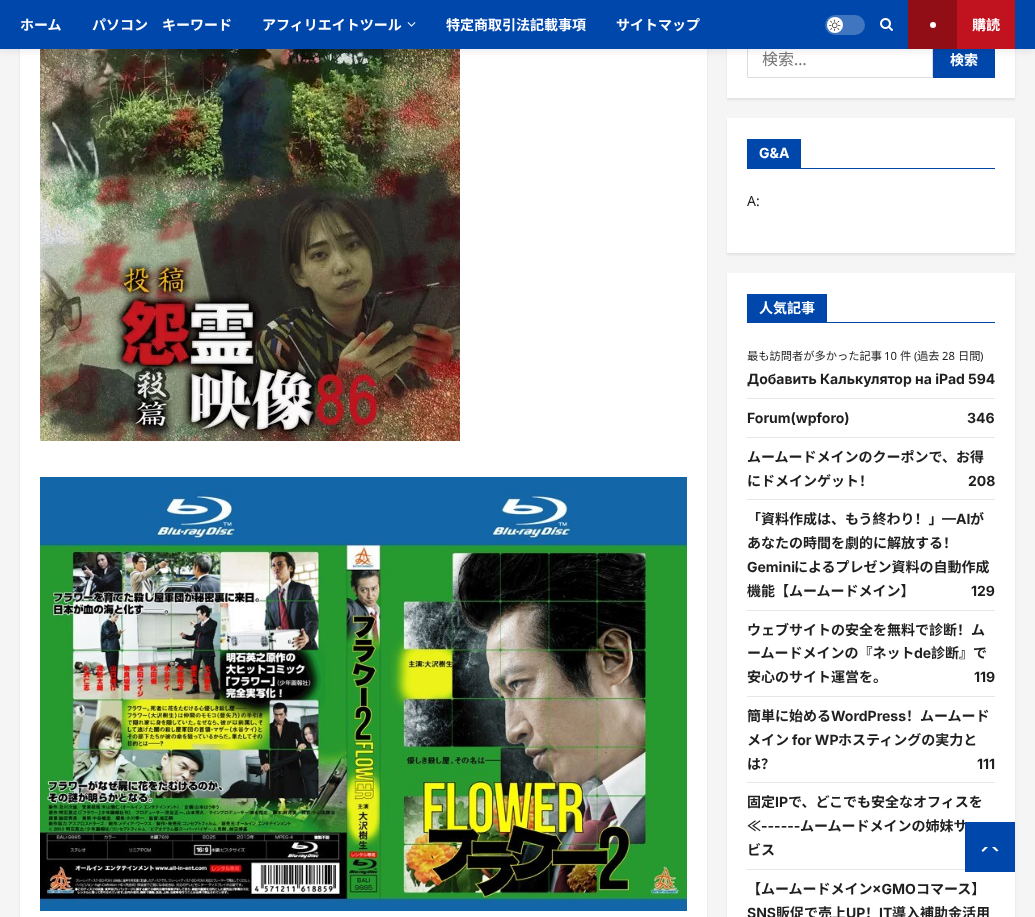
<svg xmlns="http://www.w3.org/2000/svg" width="1035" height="917">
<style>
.a{font:bold 14px Noto Sans CJK SC;fill:#fff}
.b{font:16px Noto Sans CJK SC;fill:#757575}
.c{font:16px Noto Sans;fill:#757575}
.d{font:bold 14px Inter;fill:#fff}
.e{font:14px Noto Sans;fill:#1f1f1f}
.f{font:11.25px Noto Sans CJK SC;fill:#1f1f1f}
.g{font:11.25px Noto Sans;fill:#1f1f1f}
.h{font:bold 14px Inter;fill:#1f1f1f}
.i{font:bold 14px Noto Sans CJK SC;fill:#1f1f1f}
</style>
<rect width="100%" height="100%" fill="#f5f5f5"/>
<path fill="#00000014" filter="blur(1px)" d="M20 -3h687v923H20z"/>
<path fill="#fff" d="M20 49h687v868H20z"/>
<image href="4.png" x="40" y="49" width="420" height="392"/>
<path fill="#00000014" filter="blur(1px)" d="M727 22h288v78H727z"/>
<path fill="#fff" d="M727 49h288v49H727z"/>
<path fill="none" stroke="#dcdcdc" d="M747.5 40.5h185v37H747.5z"/>
<path fill="#0047ab" d="M933 49h62v29H933z"/>
<path fill="#00000014" filter="blur(4px)" d="M0 2h1035v49H0z"/>
<path fill="#0047ab" d="M0 0h1035v49H0z"/>
<image href="1.png" x="407" y="22" width="9" height="5"/>
<rect fill="#4075c0" x="825" y="15" width="40" height="20" rx="10"/>
<circle fill="#fff" cx="835" cy="25" r="8"/>
<image href="2.png" x="829" y="19" width="12" height="12"/>
<image href="3.png" x="880" y="18" width="13" height="13"/>
<path fill="#c1121f" d="M957 0h58v49H957z"/>
<path fill="#910e17" d="M908 0h49v49H908z"/>
<circle fill="#fff" cx="933" cy="25" r="3"/>
<image href="5.png" x="40" y="477" width="647" height="434"/>
<path fill="#00000014" filter="blur(1px)" d="M727 120h288v135H727z"/>
<path fill="#fff" d="M727 118h288v135H727z"/>
<path fill="#0047ab" d="M747 168h248v1H747z"/>
<path fill="#0047ab" d="M747 139h54v29H747z"/>
<path fill="#00000014" filter="blur(1px)" d="M727 275h288v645H727z"/>
<path fill="#fff" d="M727 273h288v644H727z"/>
<path fill="#0047ab" d="M747 322h248v1H747z"/>
<path fill="#0047ab" d="M747 294h80v28H747z"/>
<path fill="#e6e6e6" d="M747 398h248v1H747z"/>
<path fill="#e6e6e6" d="M747 437h248v1H747z"/>
<path fill="#e6e6e6" d="M747 499h248v1H747z"/>
<path fill="#e6e6e6" d="M747 610h248v1H747z"/>
<path fill="#e6e6e6" d="M747 696h248v1H747z"/>
<path fill="#e6e6e6" d="M747 782h248v1H747z"/>
<path fill="#e6e6e6" d="M747 869h218v1H747z"/>
<text class="a" x="20" y="30">ホーム</text>
<text class="a" x="92" y="30">パソコン　キーワード</text>
<text class="a" x="262" y="30">アフィリエイトツール</text>
<text class="a" x="446" y="30">特定商取引法記載事項</text>
<text class="a" x="616" y="30">サイトマップ</text>
<text class="a" x="972" y="30">購読</text>
<text class="b" x="762" y="65">検索</text>
<text class="c" x="794" y="65">…</text>
<text class="a" x="950" y="65">検索</text>
<text class="d" x="759" y="158">G&amp;A</text>
<text class="e" x="747" y="206">A:</text>
<text class="a" x="759" y="313">人気記事</text>
<text class="f" x="747" y="360">最も訪問者が多かった記事</text>
<text class="g" x="884" y="360">10</text>
<text class="f" x="900" y="360">件</text>
<text class="g" x="914" y="360">(</text>
<text class="f" x="917" y="360">過去</text>
<text class="g" x="942" y="360">28</text>
<text class="f" x="958" y="360">日間</text>
<text class="g" x="980" y="360">)</text>
<text class="h" x="747" y="384">Добавить Калькулятор на iPad</text>
<text class="h" x="968" y="384">594</text>
<text class="h" x="747" y="423">Forum(wpforo)</text>
<text class="h" x="967" y="423">346</text>
<text class="i" x="747" y="462">ムームードメインのクーポンで、お得</text>
<text class="i" x="747" y="486">にドメインゲット！</text>
<text class="h" x="968" y="486">208</text>
<text class="i" x="747" y="524">「資料作成は、もう終わり！」</text>
<text class="h" x="942" y="524">—AI</text>
<text class="i" x="970" y="524">が</text>
<text class="i" x="747" y="548">あなたの時間を劇的に解放する！</text>
<text class="h" x="747" y="572">Gemini</text>
<text class="i" x="794" y="572">によるプレゼン資料の自動作成</text>
<text class="i" x="747" y="596">機能【ムームードメイン】</text>
<text class="h" x="971" y="596">129</text>
<text class="i" x="747" y="635">ウェブサイトの安全を無料で診断！ム</text>
<text class="i" x="747" y="658">ームードメインの『ネット</text>
<text class="h" x="914" y="658">de</text>
<text class="i" x="931" y="658">診断』で</text>
<text class="i" x="747" y="682">安心のサイト運営を。</text>
<text class="h" x="974" y="682">119</text>
<text class="i" x="747" y="721">簡単に始める</text>
<text class="h" x="831" y="721">WordPress</text>
<text class="i" x="906" y="721">！ムームード</text>
<text class="i" x="747" y="745">メイン</text>
<text class="h" x="792" y="745">for WP</text>
<text class="i" x="838" y="745">ホスティングの実力と</text>
<text class="i" x="747" y="769">は？</text>
<text class="h" x="977" y="769">111</text>
<text class="i" x="747" y="807">固定</text>
<text class="h" x="775" y="807">IP</text>
<text class="i" x="788" y="807">で、どこでも安全なオフィスを</text>
<text class="i" x="747" y="831">≪</text>
<text class="h" x="761" y="831">------</text>
<text class="i" x="800" y="831">ムームードメインの姉妹サ</text>
<text class="i" x="747" y="855">ビス</text>
<text class="i" x="747" y="894">【ムームードメイン</text>
<text class="h" x="872" y="894">×GMO</text>
<text class="i" x="916" y="894">コマース】</text>
<text class="h" x="747" y="918">SNS</text>
<text class="i" x="776" y="918">販促で売上</text>
<text class="h" x="846" y="918">UP</text>
<text class="i" x="865" y="918">！</text>
<text class="h" x="879" y="918">IT</text>
<text class="i" x="892" y="918">導入補助金活用</text>
<path fill="#0047ab" d="M965 822h50v50H965z"/>
<path fill="#fff" d="M985 852c3 0 11.5 1 13.5-1.5l-3.5-3.5h-10l-3.5 3.5c.5 1 2 1.5 3.5 1.5z"/>
<path fill="#0047ab" d="M1000 855h-20l10-10z"/>
</svg>
